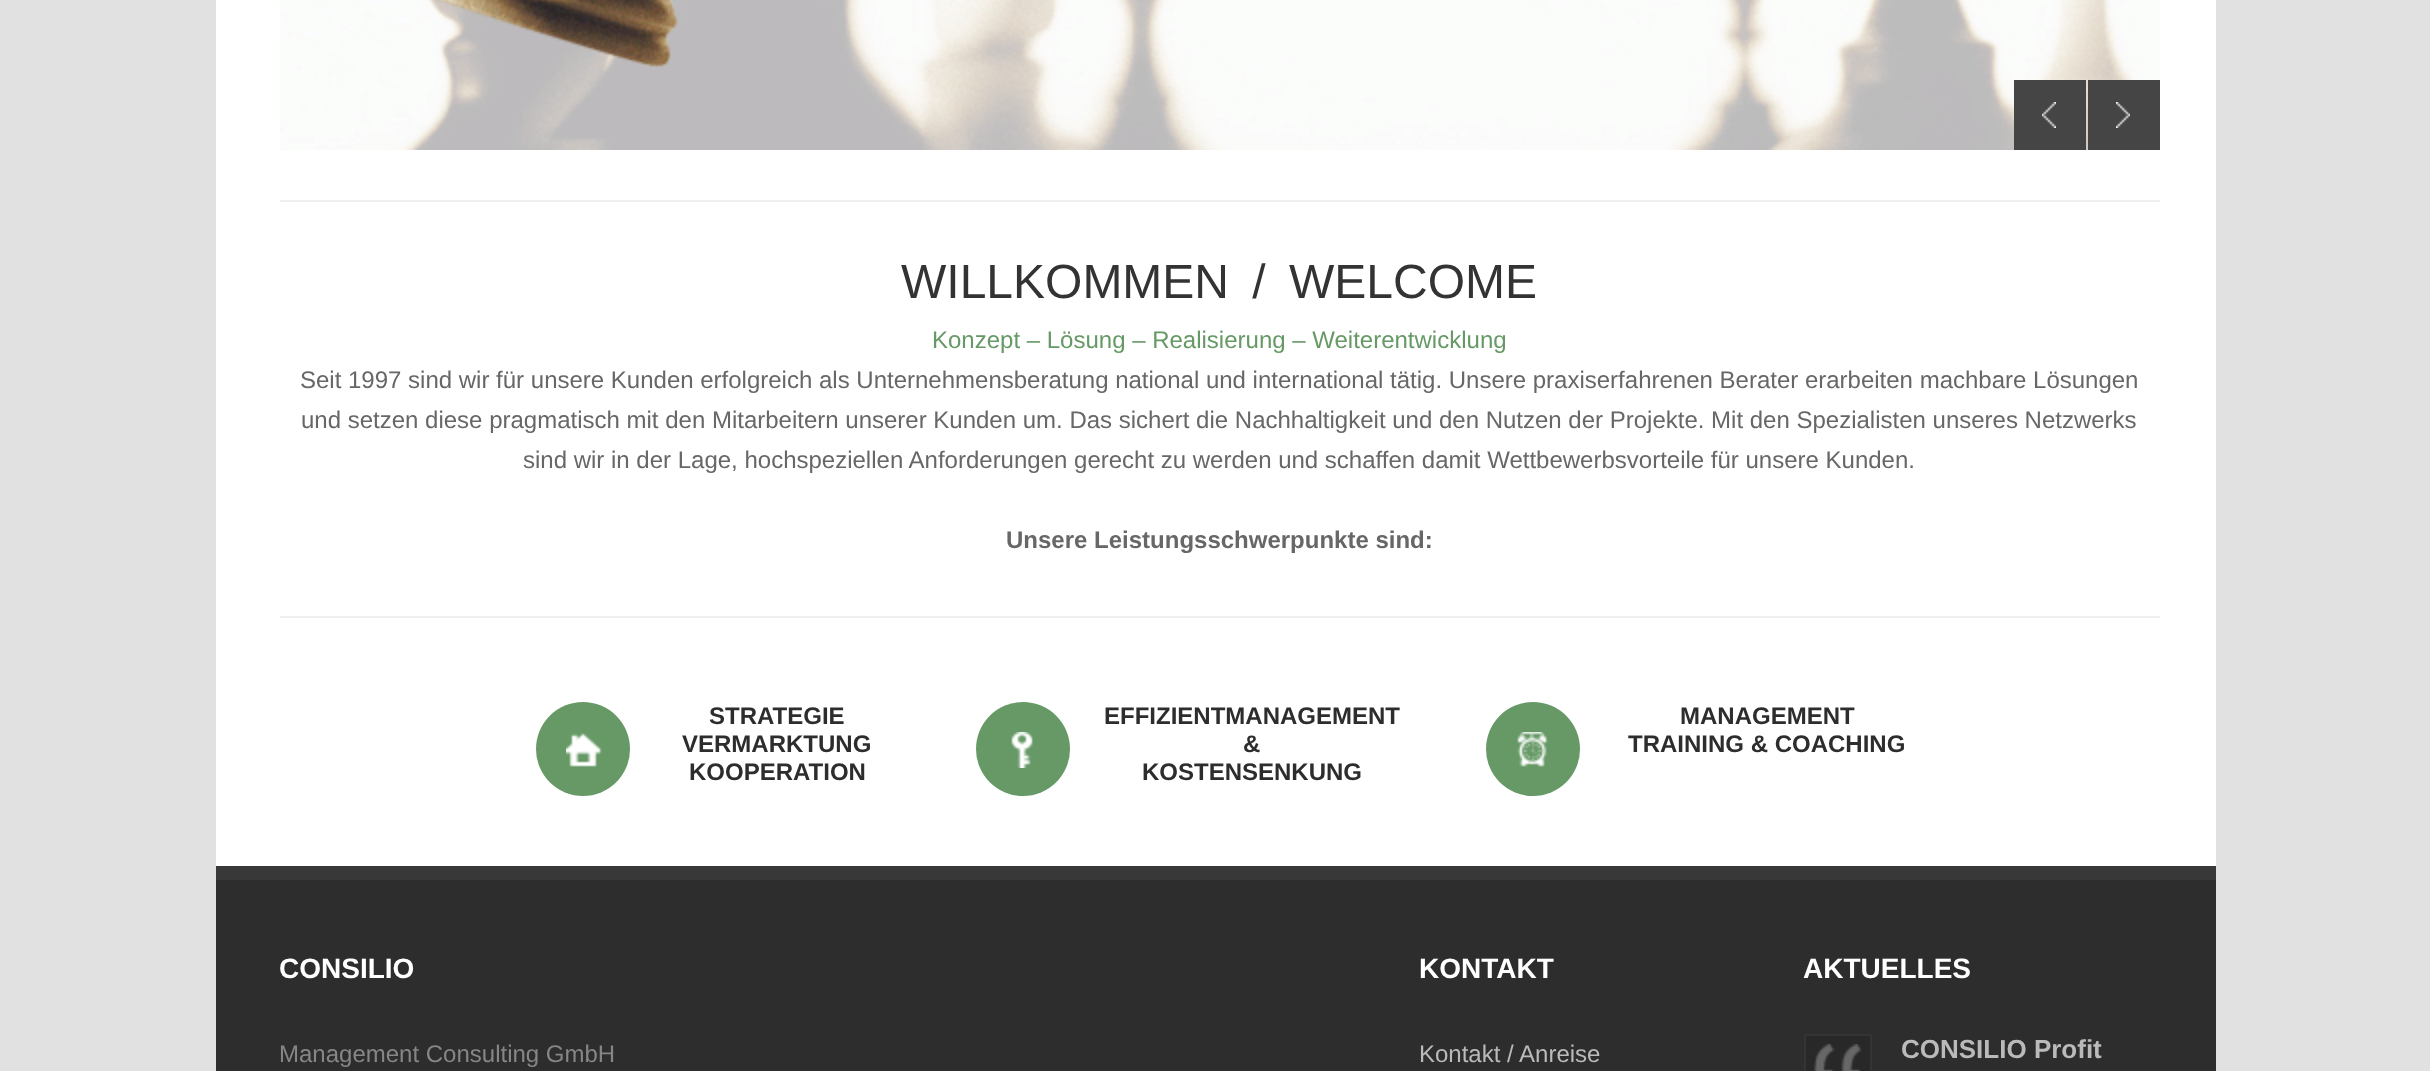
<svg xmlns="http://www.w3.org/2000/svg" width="2430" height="1071">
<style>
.a{font:48px Liberation Sans;fill:#333}
.b{font:24px Liberation Sans;fill:#696}
.c{font:24px Liberation Sans;fill:#676767}
.d{font:bold 24px Liberation Sans;fill:#676767}
.e{font:bold 24px Liberation Sans;fill:#2d2d2d}
.f{font:bold 28px Liberation Sans;fill:#fff}
.g{font:24px Liberation Sans;fill:#868686}
.h{font:24px Liberation Sans;fill:#bababa}
.i{font:bold 26px Liberation Sans;fill:#bababa}
</style>
<rect width="100%" height="100%" fill="#e1e1e1"/>
<path fill="#fff" d="M216 0h2000v866H216z"/>
<image href="1.png" x="280" y="0" width="1880" height="150"/>
<image href="2.png" x="435" y="0" width="244" height="67"/>
<path fill="#454545" d="M2014 80h72v70H2014z"/>
<image href="3.png" x="2042" y="102" width="14" height="26"/>
<path fill="#454545" d="M2088 80h72v70H2088z"/>
<image href="4.png" x="2116" y="102" width="14" height="26"/>
<path fill="#efefef" d="M280 200h1880v2H280z"/>
<path fill="#efefef" d="M280 616h1880v2H280z"/>
<circle fill="#696" cx="583" cy="749" r="47"/>
<image href="5.png" x="566" y="733" width="36" height="34"/>
<circle fill="#696" cx="1023" cy="749" r="47"/>
<image href="6.png" x="1011" y="732" width="23" height="36"/>
<circle fill="#696" cx="1533" cy="749" r="47"/>
<image href="7.png" x="1517" y="732" width="32" height="35"/>
<path fill="#2d2d2d" d="M216 880h2000v191H216z"/>
<path fill="#383838" d="M216 866h2000v14H216z"/>
<path fill="#282828" stroke="#343434" stroke-width="2" d="M1805 1035h66v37H1805z"/>
<image href="8.png" x="1814" y="1044" width="48" height="27"/>
<text class="a" x="901" y="298" word-spacing="10">WILLKOMMEN / WELCOME</text>
<text class="b" x="932" y="348">Konzept – Lösung – Realisierung – Weiterentwicklung</text>
<text class="c" x="300" y="388">Seit 1997 sind wir für unsere Kunden erfolgreich als Unternehmensberatung national und international tätig. Unsere praxiserfahrenen Berater erarbeiten machbare Lösungen</text>
<text class="c" x="301" y="428">und setzen diese pragmatisch mit den Mitarbeitern unserer Kunden um. Das sichert die Nachhaltigkeit und den Nutzen der Projekte. Mit den Spezialisten unseres Netzwerks</text>
<text class="c" x="523" y="468">sind wir in der Lage, hochspeziellen Anforderungen gerecht zu werden und schaffen damit Wettbewerbsvorteile für unsere Kunden.</text>
<text class="d" x="1006" y="548">Unsere Leistungsschwerpunkte sind:</text>
<text class="e" x="709" y="724">STRATEGIE</text>
<text class="e" x="682" y="752">VERMARKTUNG</text>
<text class="e" x="689" y="780">KOOPERATION</text>
<text class="e" x="1104" y="724">EFFIZIENTMANAGEMENT</text>
<text class="e" x="1243" y="752">&amp;</text>
<text class="e" x="1142" y="780">KOSTENSENKUNG</text>
<text class="e" x="1680" y="724">MANAGEMENT</text>
<text class="e" x="1628" y="752">TRAINING &amp; COACHING</text>
<text class="f" x="279" y="978">CONSILIO</text>
<text class="g" x="279" y="1062">Management Consulting GmbH</text>
<text class="f" x="1419" y="978">KONTAKT</text>
<text class="h" x="1419" y="1062">Kontakt / Anreise</text>
<text class="f" x="1803" y="978">AKTUELLES</text>
<text class="i" x="1901" y="1058">CONSILIO Profit</text>
</svg>
